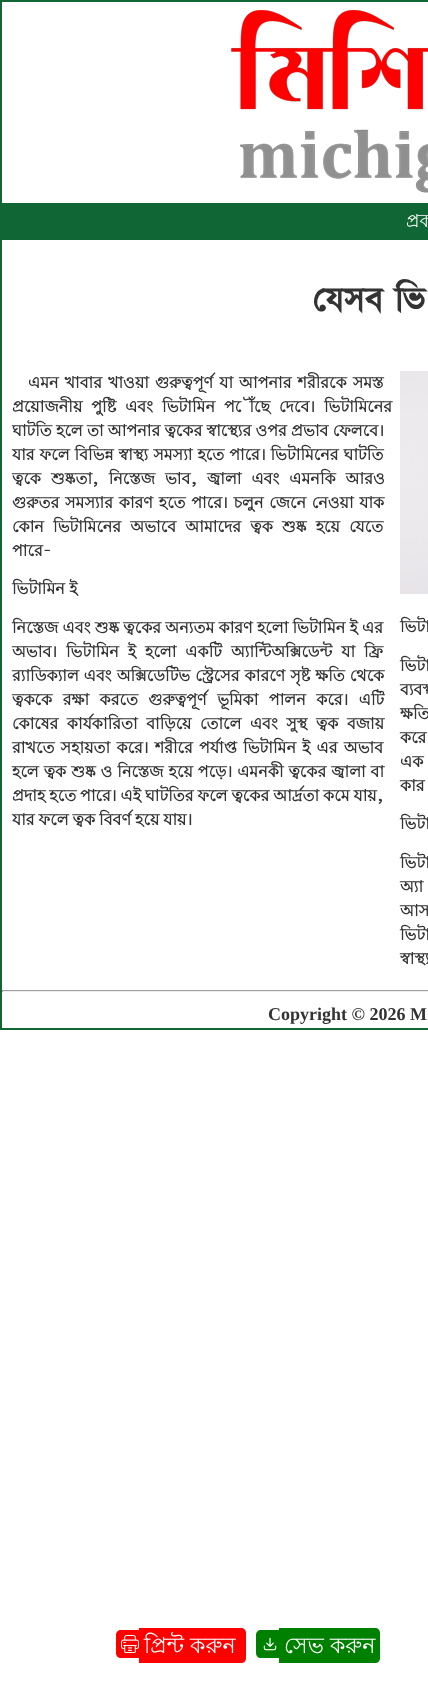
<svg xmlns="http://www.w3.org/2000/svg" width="428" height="1702">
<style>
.a{font:18px Lohit Bengali;fill:#fff}
.b{font:bold 34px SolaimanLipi;fill:#333}
.c{font:bold 16px Lohit Bengali;fill:#333}
.d{font:bold 18px Liberation Serif;fill:#333}
.e{font:22px Lohit Bengali;fill:#fff}
</style>
<rect width="100%" height="100%" fill="#fff"/>
<path fill="none" stroke="#106634" stroke-width="2" d="M1 1h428v1028H1z"/>
<image href="1.png" x="231" y="10" width="197" height="183"/>
<path fill="#106634" d="M2 203h426v37H2z"/>
<image href="2.png" x="400" y="371" width="28" height="223"/>
<path fill="#9f9f9f" d="M2 990h426v1H2z"/>
<path fill="#eee" d="M2 991h426v1H2z"/>
<path fill="#9f9f9f" d="M2 990h1v2H2z"/>
<path fill="#f00" d="M121 1630h18v28h-18c-3 0-5-2-5-5v-18c0-3 2-5 5-5z"/>
<image href="3.png" x="121" y="1635" width="18" height="18"/>
<path fill="#f00" d="M139 1628h102c3 0 5 2 5 5v25c0 3-2 5-5 5h-102z"/>
<path fill="#008000" d="M261 1630h18v28h-18c-3 0-5-2-5-5v-18c0-3 2-5 5-5z"/>
<image href="4.png" x="263" y="1637" width="14" height="14"/>
<path fill="#008000" d="M279 1628h96c3 0 5 2 5 5v25c0 3-2 5-5 5h-96z"/>
<text class="a" x="406" y="227">প্রক</text>
<text class="b" x="313" y="310">যেসব ভি</text>
<text class="c" x="28" y="388" word-spacing="1.5">এমন খাবার খাওয়া গুরুত্বপূর্ণ যা আপনার শরীরকে সমস্ত</text>
<text class="c" x="12" y="412" word-spacing="4.5">প্রয়োজনীয় পুষ্টি এবং ভিটামিন পৌঁছে দেবে। ভিটামিনের</text>
<text class="c" x="12" y="436" word-spacing="-0.25">ঘাটতি হলে তা আপনার ত্বকের স্বাস্থ্যের ওপর প্রভাব ফেলবে।</text>
<text class="c" x="12" y="460" word-spacing="0.5">যার ফলে বিভিন্ন স্বাস্থ্য সমস্যা হতে পারে। ভিটামিনের ঘাটতি</text>
<text class="c" x="12" y="484" word-spacing="5.5">ত্বকে শুষ্কতা, নিস্তেজ ভাব, জ্বালা এবং এমনকি আরও</text>
<text class="c" x="12" y="508" word-spacing="1.25">গুরুতর সমস্যার কারণ হতে পারে। চলুন জেনে নেওয়া যাক</text>
<text class="c" x="12" y="532" word-spacing="4.75">কোন ভিটামিনের অভাবে আমাদের ত্বক শুষ্ক হয়ে যেতে</text>
<text class="c" x="12" y="556">পারে-</text>
<text class="c" x="12" y="594">ভিটামিন ই</text>
<text class="c" x="12" y="633" word-spacing="-0.25">নিস্তেজ এবং শুষ্ক ত্বকের অন্যতম কারণ হলো ভিটামিন ই এর</text>
<text class="c" x="12" y="657" word-spacing="4.5">অভাব। ভিটামিন ই হলো একটি অ্যান্টিঅক্সিডেন্ট যা ফ্রি</text>
<text class="c" x="12" y="681" word-spacing="0.5">র‌্যাডিক্যাল এবং অক্সিডেটিভ স্ট্রেসের কারণে সৃষ্ট ক্ষতি থেকে</text>
<text class="c" x="12" y="705" word-spacing="6">ত্বককে রক্ষা করতে গুরুত্বপূর্ণ ভূমিকা পালন করে। এটি</text>
<text class="c" x="12" y="729" word-spacing="4">কোষের কার্যকারিতা বাড়িয়ে তোলে এবং সুস্থ ত্বক বজায়</text>
<text class="c" x="12" y="753" word-spacing="1.75">রাখতে সহায়তা করে। শরীরে পর্যাপ্ত ভিটামিন ই এর অভাব</text>
<text class="c" x="12" y="777" word-spacing="0.5">হলে ত্বক শুষ্ক ও নিস্তেজ হয়ে পড়ে। এমনকী ত্বকের জ্বালা বা</text>
<text class="c" x="12" y="801" word-spacing="-0.5">প্রদাহ হতে পারে। এই ঘাটতির ফলে ত্বকের আর্দ্রতা কমে যায়,</text>
<text class="c" x="12" y="825" word-spacing="-0.5">যার ফলে ত্বক বিবর্ণ হয়ে যায়।</text>
<text class="c" x="400" y="632">ভিটা</text>
<text class="c" x="400" y="671" word-spacing="1">ভিটা</text>
<text class="c" x="400" y="695" word-spacing="4">ব্যবস্থা</text>
<text class="c" x="400" y="719" word-spacing="4">ক্ষতি</text>
<text class="c" x="400" y="743" word-spacing="3">করে</text>
<text class="c" x="400" y="767" word-spacing="2">এক</text>
<text class="c" x="400" y="791" word-spacing="-0.5">কার</text>
<text class="c" x="400" y="829">ভিটা</text>
<text class="c" x="400" y="868" word-spacing="16">ভিটা</text>
<text class="c" x="400" y="892" word-spacing="4">অ্যা</text>
<text class="c" x="400" y="916" word-spacing="3">আসা</text>
<text class="c" x="400" y="940" word-spacing="-1">ভিটা</text>
<text class="c" x="400" y="964" word-spacing="-0.5">স্বাস্থ্য</text>
<text class="d" x="268" y="1020">Copyright © 2026 M</text>
<text class="e" x="144" y="1653">প্রিন্ট করুন</text>
<text class="e" x="284" y="1653">সেভ করুন</text>
</svg>
